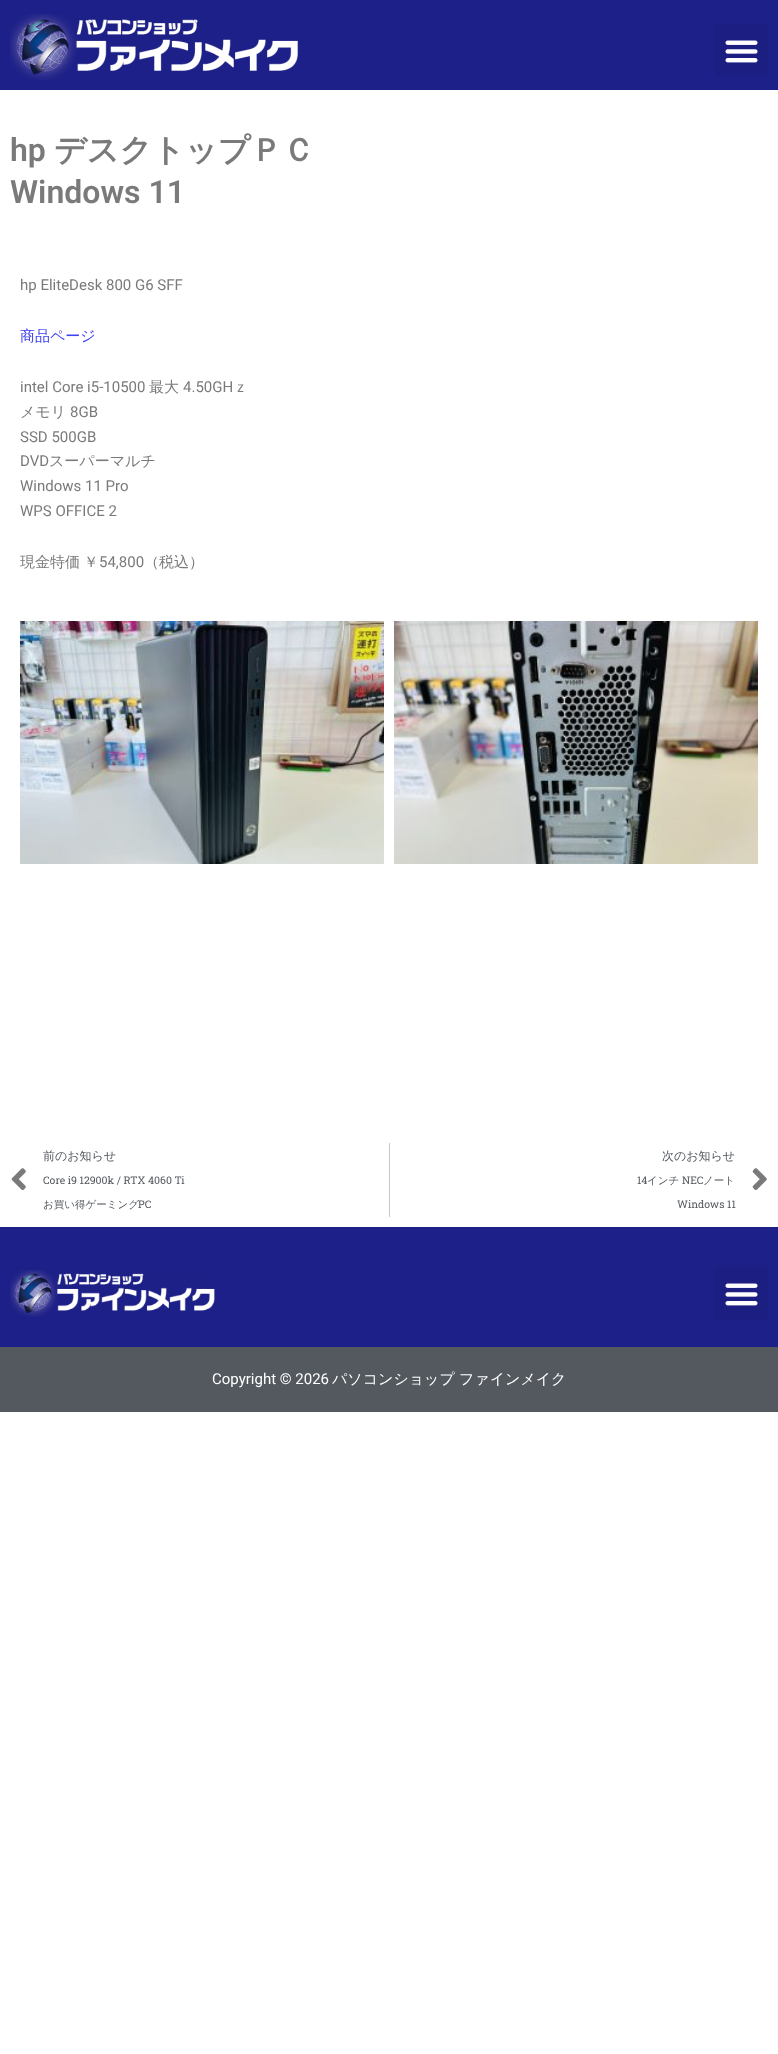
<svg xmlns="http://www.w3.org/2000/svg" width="778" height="2054">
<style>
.a{font:600 32px Roboto;fill:#7a7a7a}
.b{font:bold 32px WenQuanYi Zen Hei;fill:#7a7a7a}
.c{font:15px Roboto;fill:#7a7a7a}
.d{font:500 15px WenQuanYi Zen Hei;fill:#4040f0}
.e{font:500 15px WenQuanYi Zen Hei;fill:#7a7a7a}
.f{font:500 12px WenQuanYi Zen Hei;fill:#54595f}
.g{font:10.5px Roboto Slab;fill:#54595f}
.h{font:500 10.5px WenQuanYi Zen Hei;fill:#54595f}
.i{font:15px Roboto;fill:#fff}
.j{font:500 15px WenQuanYi Zen Hei;fill:#fff}
</style>
<rect width="100%" height="100%" fill="#fff"/>
<path fill="#1d2088" d="M0 0h778v90H0z"/>
<image href="1.png" x="10" y="14" width="288" height="66"/>
<rect fill="#1c1e81" x="715" y="24" width="53" height="52" rx="3"/>
<image href="2.png" x="725" y="40" width="33" height="23"/>
<image href="3.png" x="20" y="621" width="364" height="243"/>
<image href="4.png" x="394" y="621" width="364" height="243"/>
<image href="5.png" x="11" y="1168" width="15" height="22"/>
<path fill="#c8c8c8" d="M389 1143h1v74H389z"/>
<image href="6.png" x="752" y="1168" width="15" height="22"/>
<path fill="#1d2088" d="M0 1227h778v120H0z"/>
<image href="7.png" x="10" y="1270" width="205" height="47"/>
<rect fill="#1c1e81" x="715" y="1267" width="53" height="53" rx="3"/>
<image href="2.png" x="725" y="1283" width="33" height="23"/>
<path fill="#54595f" d="M0 1347h778v65H0z"/>
<text class="a" x="10" y="161">hp</text>
<text class="b" x="54" y="161">デスクトップＰＣ</text>
<text class="a" x="10" y="203">Windows 11</text>
<text class="c" x="20" y="290">hp EliteDesk 800 G6 SFF</text>
<text class="d" x="20" y="341">商品ページ</text>
<text class="c" x="20" y="392">intel Core i5-10500</text>
<text class="e" x="149" y="392">最大</text>
<text class="c" x="183" y="392">4.50GH</text>
<text class="e" x="233" y="392">ｚ</text>
<text class="e" x="20" y="417">メモリ</text>
<text class="c" x="70" y="417">8GB</text>
<text class="c" x="20" y="442">SSD 500GB</text>
<text class="c" x="20" y="466">DVD</text>
<text class="e" x="49" y="466">スーパーマルチ</text>
<text class="c" x="20" y="491">Windows 11 Pro</text>
<text class="c" x="20" y="516">WPS OFFICE 2</text>
<text class="e" x="20" y="567" word-spacing="-1">現金特価 ￥</text>
<text class="c" x="99" y="567">54,800</text>
<text class="e" x="144" y="567">（税込）</text>
<text class="f" x="43" y="1160">前のお知らせ</text>
<text class="g" x="43" y="1184">Core i9 12900k / RTX 4060 Ti</text>
<text class="h" x="43" y="1208">お買い得ゲーミング</text>
<text class="g" x="138" y="1208">PC</text>
<text class="f" x="662" y="1160">次のお知らせ</text>
<text class="g" x="637" y="1184">14</text>
<text class="h" x="647" y="1184">インチ</text>
<text class="g" x="682" y="1184">NEC</text>
<text class="h" x="703" y="1184">ノート</text>
<text class="g" x="677" y="1208">Windows 11</text>
<text class="i" x="212" y="1384">Copyright © 2026</text>
<text class="j" x="332" y="1384">パソコンショップ</text>
<text class="j" x="459" y="1384">ファインメイク</text>
</svg>
